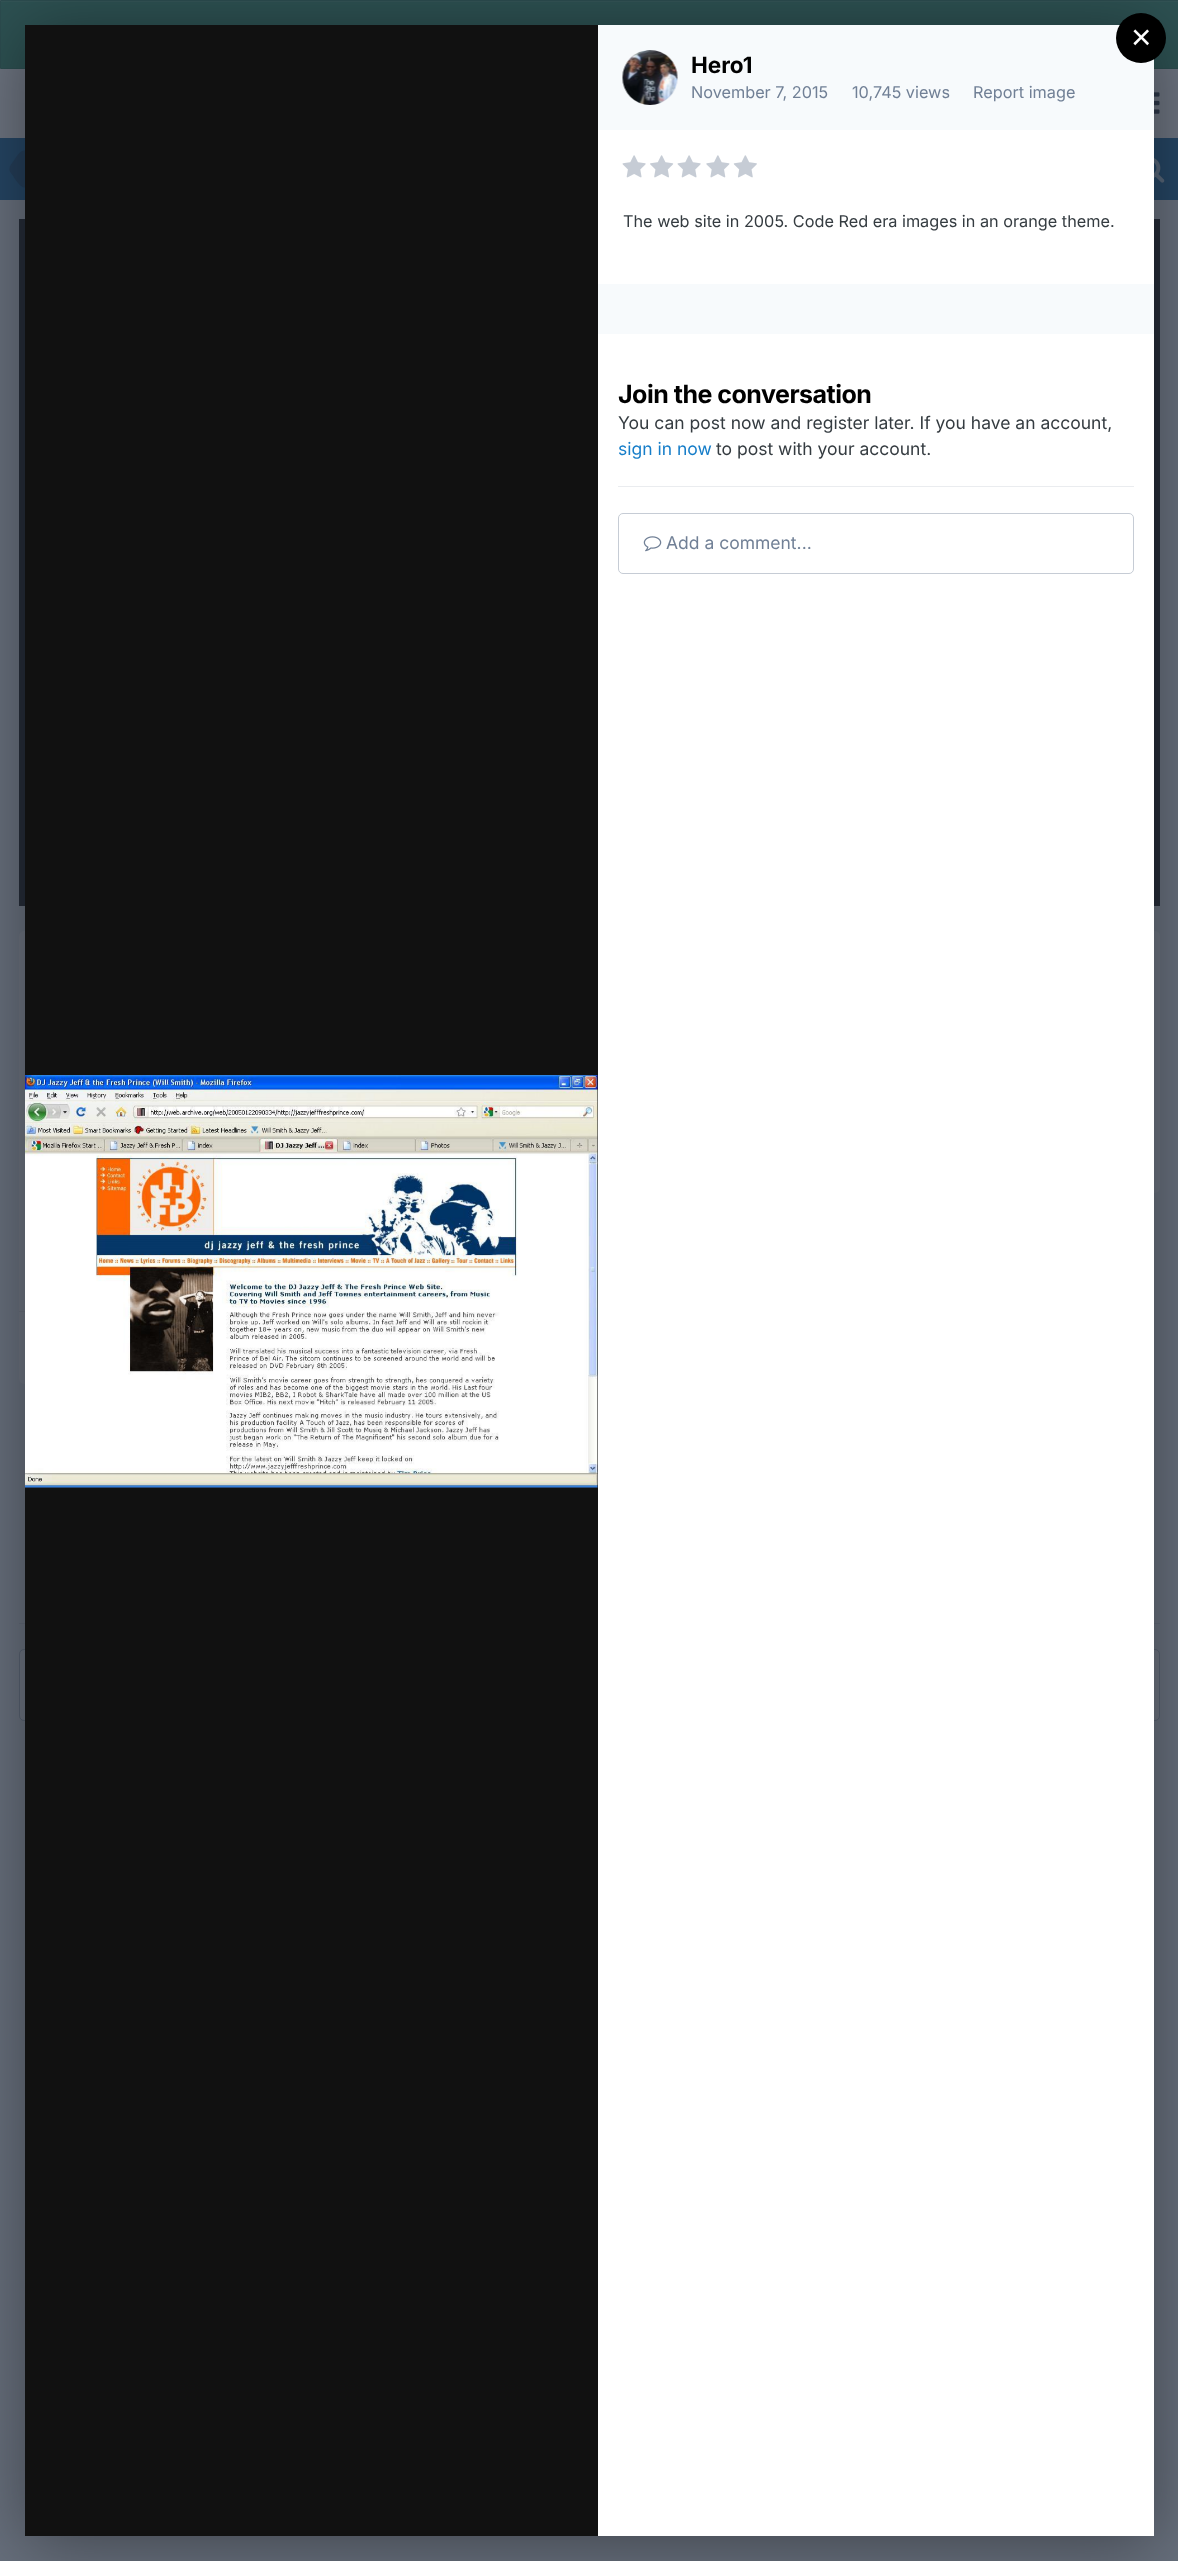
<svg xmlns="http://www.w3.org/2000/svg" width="1178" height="2561">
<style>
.a{font:35px Liberation Sans;fill:#fff}
.b{font:bold 22.5px Inter;fill:#000}
.c{font:16.25px Inter;fill:#718096}
.d{font:16.25px Inter;fill:#353c41}
.e{font:bold 25px Inter;letter-spacing:-0.5px;fill:#000}
.f{font:17.5px Inter;fill:#353c41}
.g{font:17.5px Inter;fill:#177ec9}
.h{font:17.5px Inter;fill:#718096}
</style>
<rect width="100%" height="100%" fill="#676f7c"/>
<path fill="#2d5152" d="M1 2h1177v66H1z"/>
<path fill="#335456" d="M1 1h1177v1H1z"/>
<path fill="none" stroke="#2c4c4f" d="M0.5 0.5h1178v68H0.5z"/>
<path fill="#6c737f" d="M0 69h1178v69H0z"/>
<image href="1.png" x="1154" y="92" width="6" height="22"/>
<path fill="#254563" d="M0 138h1178v62H0z"/>
<path fill="#243d57" d="M25 187.5c-5.5 0-9.5-8.5-12.5-12.5c-1-1.5-3.5-4-3-6h15.5zm0-37v18.5h-15.5c0-3.5 2.5-6 4.5-8.5c2.5-3.5 5.5-10 11-10z"/>
<image href="2.png" x="1154" y="158" width="11" height="25"/>
<path fill="#252c38" d="M19 219h1141v687H19z"/>
<rect fill="#6c737f" x="19" y="931" width="776" height="453" rx="5"/>
<path fill="#666d79" d="M19 1311h6v1H19z"/>
<rect fill="#6c737f" x="825" y="931" width="335" height="262" rx="5"/>
<path fill="#616977" d="M19 1623h1141v1H19z"/>
<rect fill="#6c737f" x="20" y="1650" width="1139" height="70" rx="4"/>
<rect fill="none" stroke="#414d5f66" x="19.5" y="1649.5" width="1140" height="71" rx="4.5"/>
<path fill="#00000066" filter="blur(34.5px)" d="M25 31h1129v2512H25z"/>
<path fill="#f7fafc" d="M598 25h556v105H598z"/>
<circle fill="#000" cx="1141" cy="38" r="25"/>
<path fill="#111" d="M25 25h573v2511H25z"/>
<path fill="#fff" d="M598 130h556v2406H598z"/>
<circle fill="#fff" cx="650.5" cy="77.5" r="27.5"/>
<image href="3.png" x="622" y="50" width="56" height="55"/>
<image href="4.png" x="622" y="155" width="24" height="23"/>
<image href="5.png" x="650" y="155" width="24" height="23"/>
<image href="4.png" x="677" y="155" width="24" height="23"/>
<image href="6.png" x="706" y="155" width="24" height="23"/>
<image href="7.png" x="733" y="155" width="24" height="23"/>
<path fill="#f7fafc" d="M598 284h556v50H598z"/>
<path fill="#eaecef" d="M618 486h516v1H618z"/>
<rect fill="none" stroke="#c6ccd5" x="618.5" y="513.5" width="515" height="60" rx="4.5"/>
<image href="8.png" x="643" y="536" width="19" height="16"/>
<path fill="#222" d="M25 1075h573v413H25z"/>
<image href="9.png" x="25" y="1075" width="573" height="413"/>
<text class="a" x="1131" y="49">×</text>
<text class="b" x="691" y="73">Hero1</text>
<text class="c" x="691" y="98">November 7, 2015</text>
<text class="c" x="852" y="98">10,745 views</text>
<text class="c" x="973" y="98">Report image</text>
<text class="d" x="623" y="227">The web site in 2005. Code Red era images in an orange theme.</text>
<text class="e" x="618" y="403">Join the conversation</text>
<text class="f" x="618" y="429">You can post now and register later. If you have an account,</text>
<text class="g" x="618" y="455">sign in now</text>
<text class="f" x="716" y="455">to post with your account.</text>
<text class="h" x="666" y="549">Add a comment...</text>
</svg>
